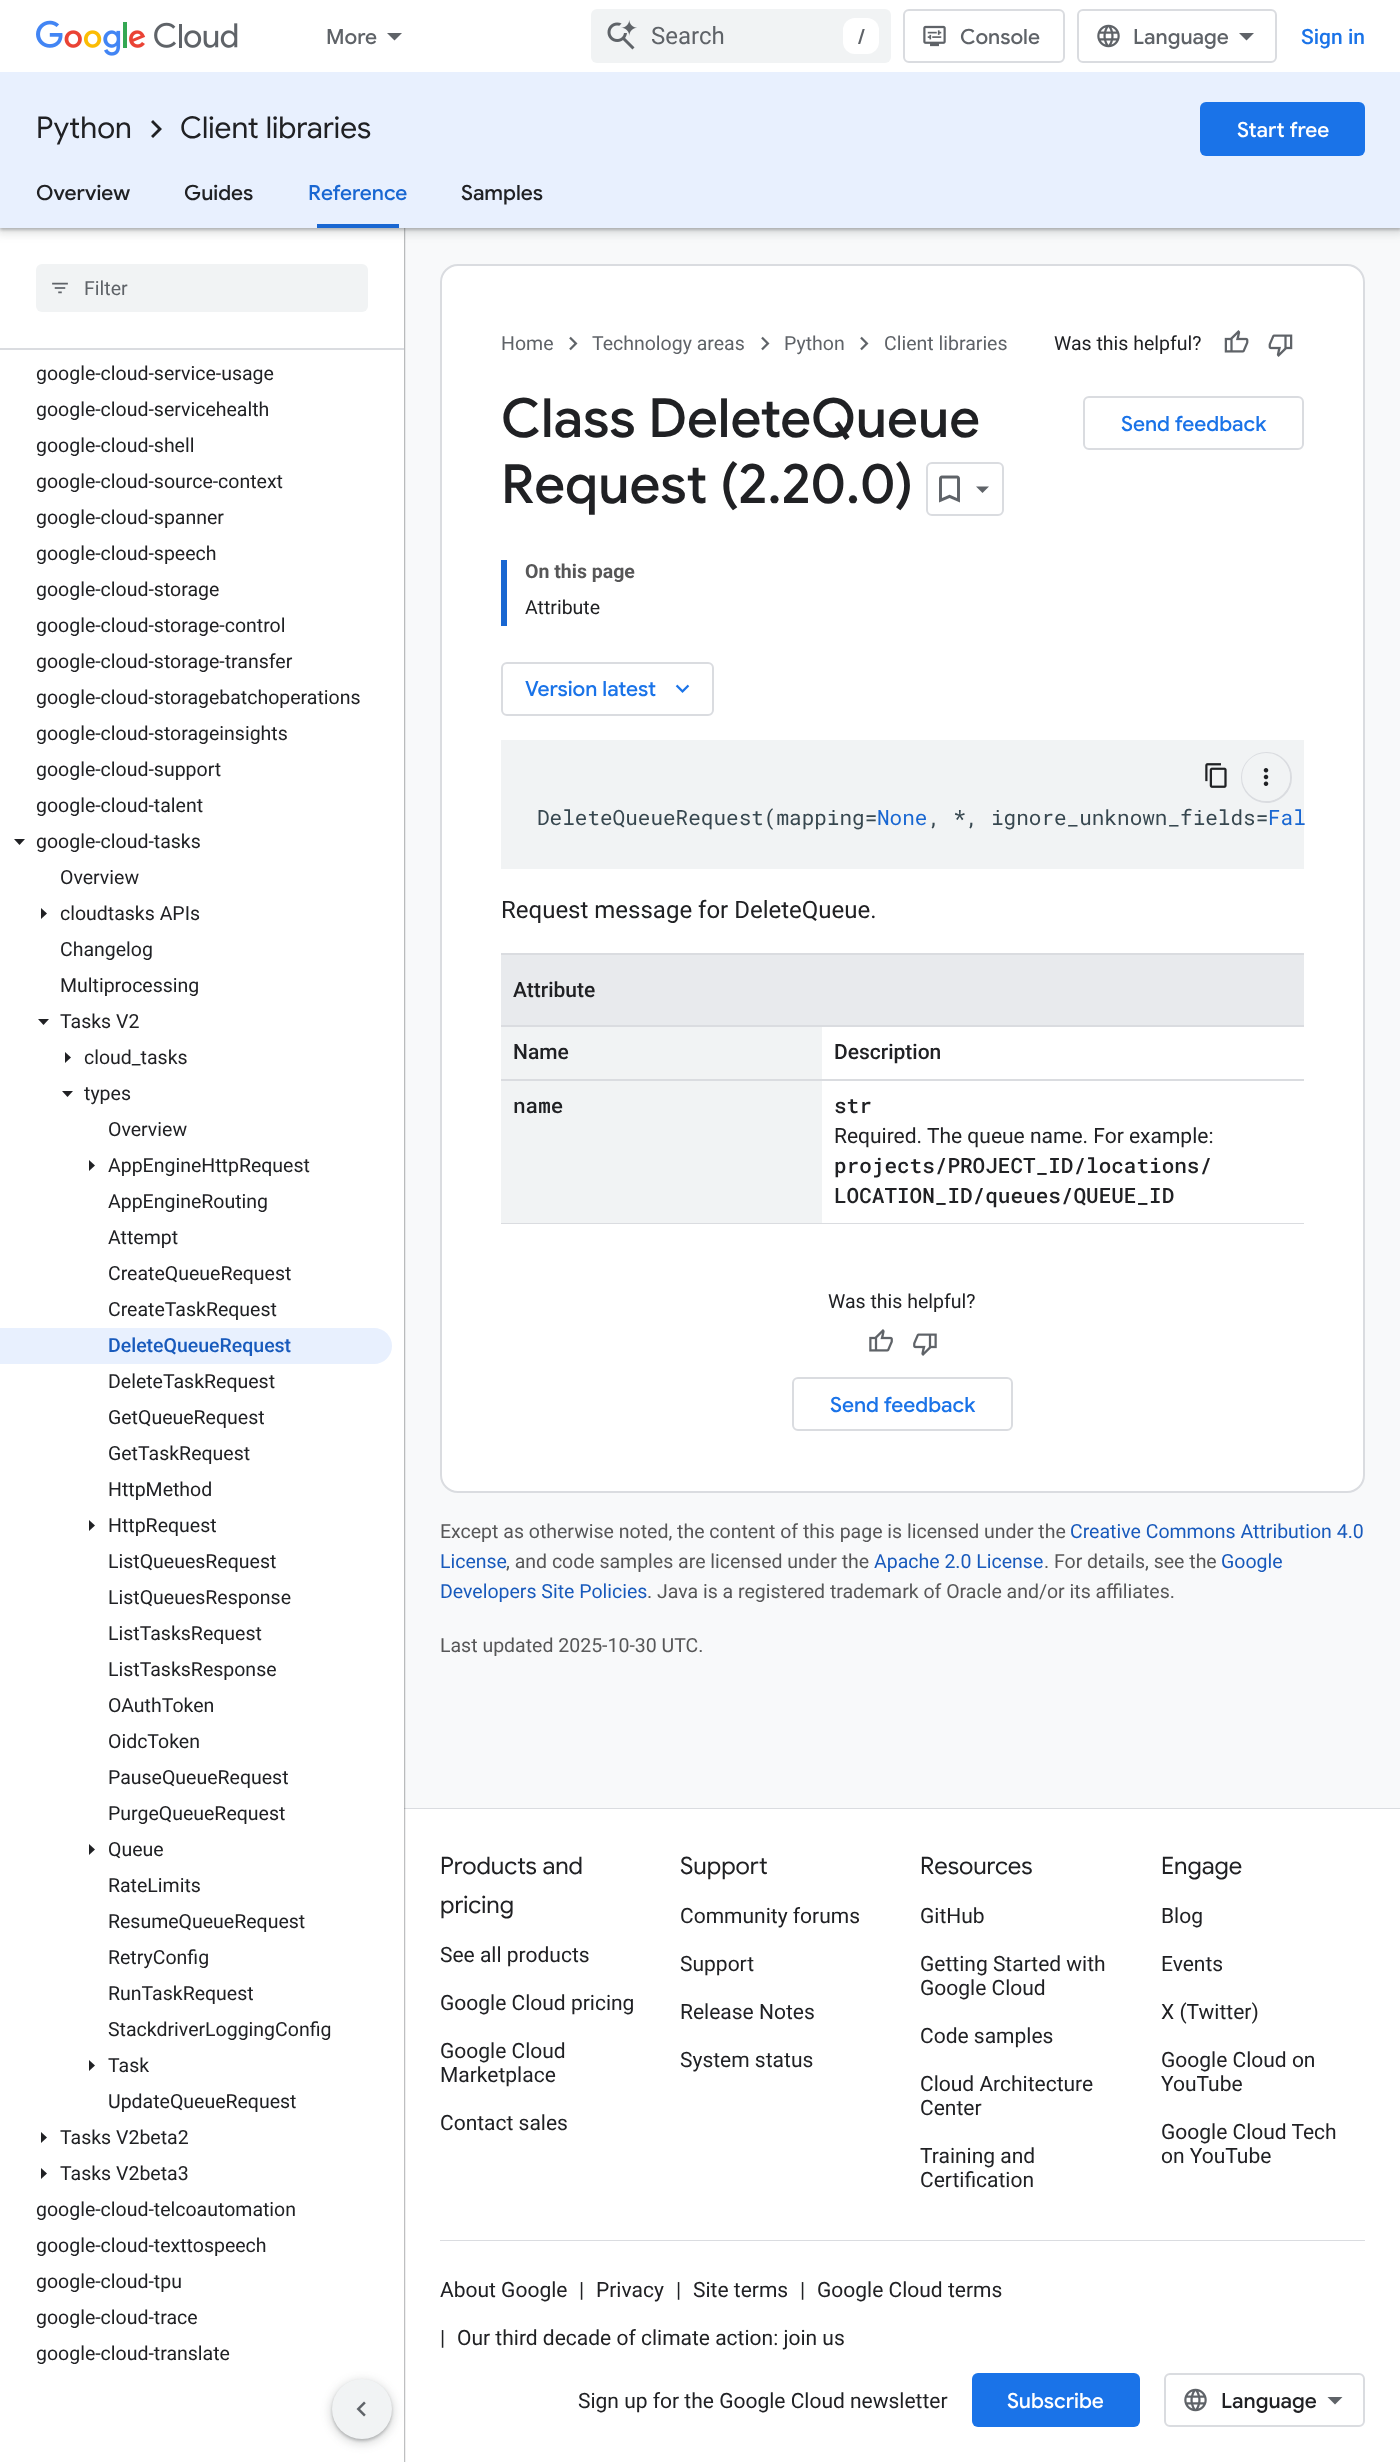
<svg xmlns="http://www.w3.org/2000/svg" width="1400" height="2462">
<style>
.a{font:500 21px Google Sans;fill:#5f6368}
.b{font:24px Roboto;fill:#5f6368}
.c{font:500 21px Roboto;fill:#1a73e8}
.d{font:30px Google Sans;fill:#202124}
.e{font:500 21px Google Sans;fill:#fff}
.f{font:500 21px Google Sans;fill:#202124}
.g{font:500 21px Google Sans;fill:#1967d2}
.h{font:19.5px Roboto;fill:#5f6368}
.i{font:19.5px Roboto;fill:#202124}
.j{font:500 19.5px Roboto;fill:#185abc}
.k{font:500 54px Google Sans;fill:#202124}
.l{font:500 21px Google Sans;fill:#1a73e8}
.m{font:bold 19.5px Roboto;fill:#575758}
.n{font:21px Roboto Mono;fill:#37474f}
.o{font:21px Roboto Mono;fill:#1967d2}
.p{font:24px Roboto;fill:#202124}
.q{font:500 21px Roboto;fill:#202124}
.r{font:500 21px Roboto Mono;fill:#202124}
.s{font:21px Roboto;fill:#202124}
.t{font:19.5px Roboto;fill:#575758}
.u{font:19.5px Roboto;fill:#185abc}
.v{font:24px Google Sans;fill:#202124}
</style>
<rect width="100%" height="100%" fill="#f8f9fa"/>
<path fill="#dadce0" d="M404 1808h996v1H404z"/>
<path fill="#fff" d="M404 1809h996v653H404z"/>
<path fill="#3c4043" filter="blur(1px)" d="M0 2h404v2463H0z"/>
<path fill="#fff" d="M0 350h404v2112H0z"/>
<path fill="#fff" d="M0 228h404v120H0z"/>
<path fill="#3c404326" filter="blur(4.5px)" d="M-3 72h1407v162H-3z"/>
<path fill="#3c40434d" filter="blur(1.5px)" d="M0 74h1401v156H0z"/>
<path fill="#fff" d="M0 0h1400v72H0z"/>
<image href="1.png" x="36" y="20" width="202" height="36"/>
<path fill="#5f6368" d="M387 33h15l-7.5 7.5z"/>
<rect fill="#f1f3f4" x="591" y="9" width="300" height="54" rx="6"/>
<image href="2.png" x="607" y="20" width="30" height="30"/>
<rect fill="#fff" x="843" y="18" width="36" height="36" rx="12"/>
<rect fill="none" stroke="#dadce0" stroke-width="2" x="904" y="10" width="160" height="52" rx="5"/>
<image href="3.png" x="923" y="25" width="23" height="22"/>
<rect fill="none" stroke="#dadce0" stroke-width="2" x="1078" y="10" width="198" height="52" rx="5"/>
<image href="4.png" x="1097" y="24" width="23" height="24"/>
<path fill="#5f6368" d="M1246.5 40.5l-7.5-7.5h15z"/>
<path fill="#e8f0fe" d="M0 72h1400v156H0z"/>
<path fill="#202124" d="M153 120l9 9l-9 9l-2-2l7-7l-7-7z"/>
<rect fill="#1a73e8" x="1200" y="102" width="165" height="54" rx="6"/>
<path fill="#1967d2" d="M317 224h82v4H317z"/>
<path fill="#dadce0" d="M0 348h404v2H0z"/>
<rect fill="#f1f3f4" x="36" y="264" width="332" height="48" rx="6"/>
<image href="5.png" x="52" y="282" width="16" height="12"/>
<path fill="#202124" d="M14 839h11l-5.5 6z"/>
<path fill="#202124" d="M41 919v-11l6 5.5z"/>
<path fill="#202124" d="M38 1019h11l-5.5 6z"/>
<path fill="#202124" d="M65 1063v-11l6 5.5z"/>
<path fill="#202124" d="M62 1091h11l-5.5 6z"/>
<path fill="#202124" d="M89 1171v-11l6 5.5z"/>
<path fill="#e8f0fe" d="M0 1328h374c10 0 18 8 18 18c0 10-8 18-18 18h-374z"/>
<path fill="#202124" d="M89 1531v-11l6 5.5z"/>
<path fill="#202124" d="M89 1855v-11l6 5.5z"/>
<path fill="#202124" d="M89 2071v-11l6 5.5z"/>
<path fill="#202124" d="M41 2143v-11l6 5.5z"/>
<path fill="#202124" d="M41 2179v-11l6 5.5z"/>
<rect fill="#3c404326" filter="blur(4.5px)" x="329" y="2379" width="66" height="66" rx="33"/>
<rect fill="#3c40434d" filter="blur(1.5px)" x="332" y="2381" width="60" height="60" rx="30"/>
<circle fill="#f1f3f4" cx="362" cy="2409" r="30"/>
<image href="6.png" x="356" y="2401" width="10" height="16"/>
<rect fill="#fff" stroke="#dadce0" stroke-width="2" x="441" y="265" width="923" height="1227" rx="17"/>
<image href="7.png" x="569" y="336" width="9" height="15"/>
<image href="7.png" x="761" y="336" width="9" height="15"/>
<image href="7.png" x="860" y="336" width="9" height="15"/>
<image href="8.png" x="1224" y="330" width="25" height="23"/>
<image href="9.png" x="1268" y="334" width="25" height="23"/>
<rect fill="none" stroke="#dadce0" stroke-width="2" x="927" y="463" width="76" height="52" rx="5"/>
<image href="10.png" x="939" y="475" width="21" height="28"/>
<path fill="#5f6368" d="M976 486.5h13l-6.5 6.5z"/>
<rect fill="none" stroke="#dadce0" stroke-width="2" x="1084" y="397" width="219" height="52" rx="5"/>
<path fill="#1967d2" d="M501 560h6v66H501z"/>
<rect fill="none" stroke="#dadce0" stroke-width="2" x="502" y="663" width="211" height="52" rx="5"/>
<image href="11.png" x="675" y="684" width="15" height="9"/>
<path fill="#f1f3f4" d="M501 740h803v129H501z"/>
<image href="12.png" x="1205" y="763" width="22" height="25"/>
<circle fill="none" stroke="#dadce0" stroke-width="2" cx="1266.5" cy="777.5" r="24.5"/>
<circle fill="#f1f3f4" cx="1266" cy="777" r="24"/>
<image href="13.png" x="1263" y="768" width="6" height="18"/>
<path fill="#dadce0" d="M501 953h803v2H501z"/>
<path fill="#dadce0" d="M501 1025h803v2H501z"/>
<path fill="#e8eaed" d="M501 955h803v70H501z"/>
<path fill="#dadce0" d="M501 1079h803v2H501z"/>
<path fill="#f1f3f4" d="M501 1027h321v52H501z"/>
<path fill="#dadce0" d="M501 1223h803v1H501z"/>
<path fill="#f1f3f4" d="M501 1081h321v142H501z"/>
<image href="14.png" x="869" y="1329" width="24" height="23"/>
<image href="15.png" x="913" y="1333" width="24" height="23"/>
<rect fill="none" stroke="#dadce0" stroke-width="2" x="793" y="1378" width="219" height="52" rx="5"/>
<path fill="#dadce0" d="M440 2240h925v1H440z"/>
<rect fill="#1a73e8" x="972" y="2373" width="168" height="54" rx="6"/>
<rect fill="none" stroke="#dadce0" stroke-width="2" x="1165" y="2374" width="199" height="52" rx="5"/>
<image href="4.png" x="1184" y="2388" width="23" height="24"/>
<path fill="#5f6368" d="M1335 2404.5l-7.5-7.5h15z"/>
<text class="a" x="326" y="44">More</text>
<text class="b" x="651" y="44">Search</text>
<text class="a" x="858" y="44">/</text>
<text class="a" x="960" y="44">Console</text>
<text class="a" x="1133" y="44">Language</text>
<text class="c" x="1301" y="44">Sign in</text>
<text class="d" x="36" y="138">Python</text>
<text class="d" x="180" y="138">Client libraries</text>
<text class="e" x="1237" y="137">Start free</text>
<text class="f" x="36" y="200">Overview</text>
<text class="f" x="184" y="200">Guides</text>
<text class="g" x="308" y="200">Reference</text>
<text class="f" x="461" y="200">Samples</text>
<text class="h" x="84" y="295">Filter</text>
<text class="i" x="36" y="380">google-cloud-service-usage</text>
<text class="i" x="36" y="416">google-cloud-servicehealth</text>
<text class="i" x="36" y="452">google-cloud-shell</text>
<text class="i" x="36" y="488">google-cloud-source-context</text>
<text class="i" x="36" y="524">google-cloud-spanner</text>
<text class="i" x="36" y="560">google-cloud-speech</text>
<text class="i" x="36" y="596">google-cloud-storage</text>
<text class="i" x="36" y="632">google-cloud-storage-control</text>
<text class="i" x="36" y="668">google-cloud-storage-transfer</text>
<text class="i" x="36" y="704">google-cloud-storagebatchoperations</text>
<text class="i" x="36" y="740">google-cloud-storageinsights</text>
<text class="i" x="36" y="776">google-cloud-support</text>
<text class="i" x="36" y="812">google-cloud-talent</text>
<text class="i" x="36" y="848">google-cloud-tasks</text>
<text class="i" x="60" y="884">Overview</text>
<text class="i" x="60" y="920">cloudtasks APIs</text>
<text class="i" x="60" y="956">Changelog</text>
<text class="i" x="60" y="992">Multiprocessing</text>
<text class="i" x="60" y="1028">Tasks V2</text>
<text class="i" x="84" y="1064">cloud_tasks</text>
<text class="i" x="84" y="1100">types</text>
<text class="i" x="108" y="1136">Overview</text>
<text class="i" x="108" y="1172">AppEngineHttpRequest</text>
<text class="i" x="108" y="1208">AppEngineRouting</text>
<text class="i" x="108" y="1244">Attempt</text>
<text class="i" x="108" y="1280">CreateQueueRequest</text>
<text class="i" x="108" y="1316">CreateTaskRequest</text>
<text class="j" x="108" y="1352">DeleteQueueRequest</text>
<text class="i" x="108" y="1388">DeleteTaskRequest</text>
<text class="i" x="108" y="1424">GetQueueRequest</text>
<text class="i" x="108" y="1460">GetTaskRequest</text>
<text class="i" x="108" y="1496">HttpMethod</text>
<text class="i" x="108" y="1532">HttpRequest</text>
<text class="i" x="108" y="1568">ListQueuesRequest</text>
<text class="i" x="108" y="1604">ListQueuesResponse</text>
<text class="i" x="108" y="1640">ListTasksRequest</text>
<text class="i" x="108" y="1676">ListTasksResponse</text>
<text class="i" x="108" y="1712">OAuthToken</text>
<text class="i" x="108" y="1748">OidcToken</text>
<text class="i" x="108" y="1784">PauseQueueRequest</text>
<text class="i" x="108" y="1820">PurgeQueueRequest</text>
<text class="i" x="108" y="1856">Queue</text>
<text class="i" x="108" y="1892">RateLimits</text>
<text class="i" x="108" y="1928">ResumeQueueRequest</text>
<text class="i" x="108" y="1964">RetryConfig</text>
<text class="i" x="108" y="2000">RunTaskRequest</text>
<text class="i" x="108" y="2036">StackdriverLoggingConfig</text>
<text class="i" x="108" y="2072">Task</text>
<text class="i" x="108" y="2108">UpdateQueueRequest</text>
<text class="i" x="60" y="2144">Tasks V2beta2</text>
<text class="i" x="60" y="2180">Tasks V2beta3</text>
<text class="i" x="36" y="2216">google-cloud-telcoautomation</text>
<text class="i" x="36" y="2252">google-cloud-texttospeech</text>
<text class="i" x="36" y="2288">google-cloud-tpu</text>
<text class="i" x="36" y="2324">google-cloud-trace</text>
<text class="i" x="36" y="2360">google-cloud-translate</text>
<text class="h" x="501" y="350">Home</text>
<text class="h" x="592" y="350">Technology areas</text>
<text class="h" x="784" y="350">Python</text>
<text class="h" x="884" y="350">Client libraries</text>
<text class="i" x="1054" y="350">Was this helpful?</text>
<text class="k" x="501" y="437">Class DeleteQueue</text>
<text class="k" x="501" y="503">Request (2.20.0)</text>
<text class="l" x="1121" y="431">Send feedback</text>
<text class="m" x="525" y="578">On this page</text>
<text class="i" x="525" y="614">Attribute</text>
<text class="l" x="525" y="696">Version latest</text>
<text class="n" x="537" y="825">DeleteQueueRequest(mapping=</text>
<text class="o" x="877" y="825">None</text>
<text class="n" x="928" y="825">, *, ignore_unknown_fields=</text>
<text class="o" x="1268" y="825">Fal</text>
<text class="p" x="501" y="918">Request message for DeleteQueue.</text>
<text class="q" x="513" y="997">Attribute</text>
<text class="q" x="513" y="1059">Name</text>
<text class="q" x="834" y="1059">Description</text>
<text class="r" x="513" y="1113">name</text>
<text class="r" x="834" y="1113">str</text>
<text class="s" x="834" y="1143">Required. The queue name. For example:</text>
<text class="r" x="834" y="1173">projects/PROJECT_ID/locations/</text>
<text class="r" x="834" y="1203">LOCATION_ID/queues/QUEUE_ID</text>
<text class="i" x="828" y="1308">Was this helpful?</text>
<text class="l" x="830" y="1412">Send feedback</text>
<text class="t" x="440" y="1538">Except as otherwise noted, the content of this page is licensed under the</text>
<text class="u" x="1070" y="1538">Creative Commons Attribution 4.0</text>
<text class="u" x="440" y="1568">License</text>
<text class="t" x="506" y="1568">, and code samples are licensed under the</text>
<text class="u" x="874" y="1568">Apache 2.0 License</text>
<text class="t" x="1044" y="1568">. For details, see the</text>
<text class="u" x="1221" y="1568">Google</text>
<text class="u" x="440" y="1598">Developers Site Policies</text>
<text class="t" x="647" y="1598">. Java is a registered trademark of Oracle and/or its affiliates.</text>
<text class="t" x="440" y="1652">Last updated 2025-10-30 UTC.</text>
<text class="v" x="440" y="1874">Products and</text>
<text class="v" x="440" y="1913">pricing</text>
<text class="s" x="440" y="1962">See all products</text>
<text class="s" x="440" y="2010">Google Cloud pricing</text>
<text class="s" x="440" y="2058">Google Cloud</text>
<text class="s" x="440" y="2082">Marketplace</text>
<text class="s" x="440" y="2130">Contact sales</text>
<text class="v" x="680" y="1874">Support</text>
<text class="s" x="680" y="1923">Community forums</text>
<text class="s" x="680" y="1971">Support</text>
<text class="s" x="680" y="2019">Release Notes</text>
<text class="s" x="680" y="2067">System status</text>
<text class="v" x="920" y="1874">Resources</text>
<text class="s" x="920" y="1923">GitHub</text>
<text class="s" x="920" y="1971">Getting Started with</text>
<text class="s" x="920" y="1995">Google Cloud</text>
<text class="s" x="920" y="2043">Code samples</text>
<text class="s" x="920" y="2091">Cloud Architecture</text>
<text class="s" x="920" y="2115">Center</text>
<text class="s" x="920" y="2163">Training and</text>
<text class="s" x="920" y="2187">Certification</text>
<text class="v" x="1161" y="1874">Engage</text>
<text class="s" x="1161" y="1923">Blog</text>
<text class="s" x="1161" y="1971">Events</text>
<text class="s" x="1161" y="2019">X (Twitter)</text>
<text class="s" x="1161" y="2067">Google Cloud on</text>
<text class="s" x="1161" y="2091">YouTube</text>
<text class="s" x="1161" y="2139">Google Cloud Tech</text>
<text class="s" x="1161" y="2163">on YouTube</text>
<text class="s" x="440" y="2297">About Google</text>
<text class="s" x="579" y="2297">|</text>
<text class="s" x="596" y="2297">Privacy</text>
<text class="s" x="676" y="2297">|</text>
<text class="s" x="693" y="2297">Site terms</text>
<text class="s" x="800" y="2297">|</text>
<text class="s" x="817" y="2297">Google Cloud terms</text>
<text class="s" x="440" y="2345">|</text>
<text class="s" x="457" y="2345">Our third decade of climate action: join us</text>
<text class="s" x="578" y="2408">Sign up for the Google Cloud newsletter</text>
<text class="e" x="1007" y="2408">Subscribe</text>
<text class="f" x="1221" y="2408">Language</text>
</svg>
